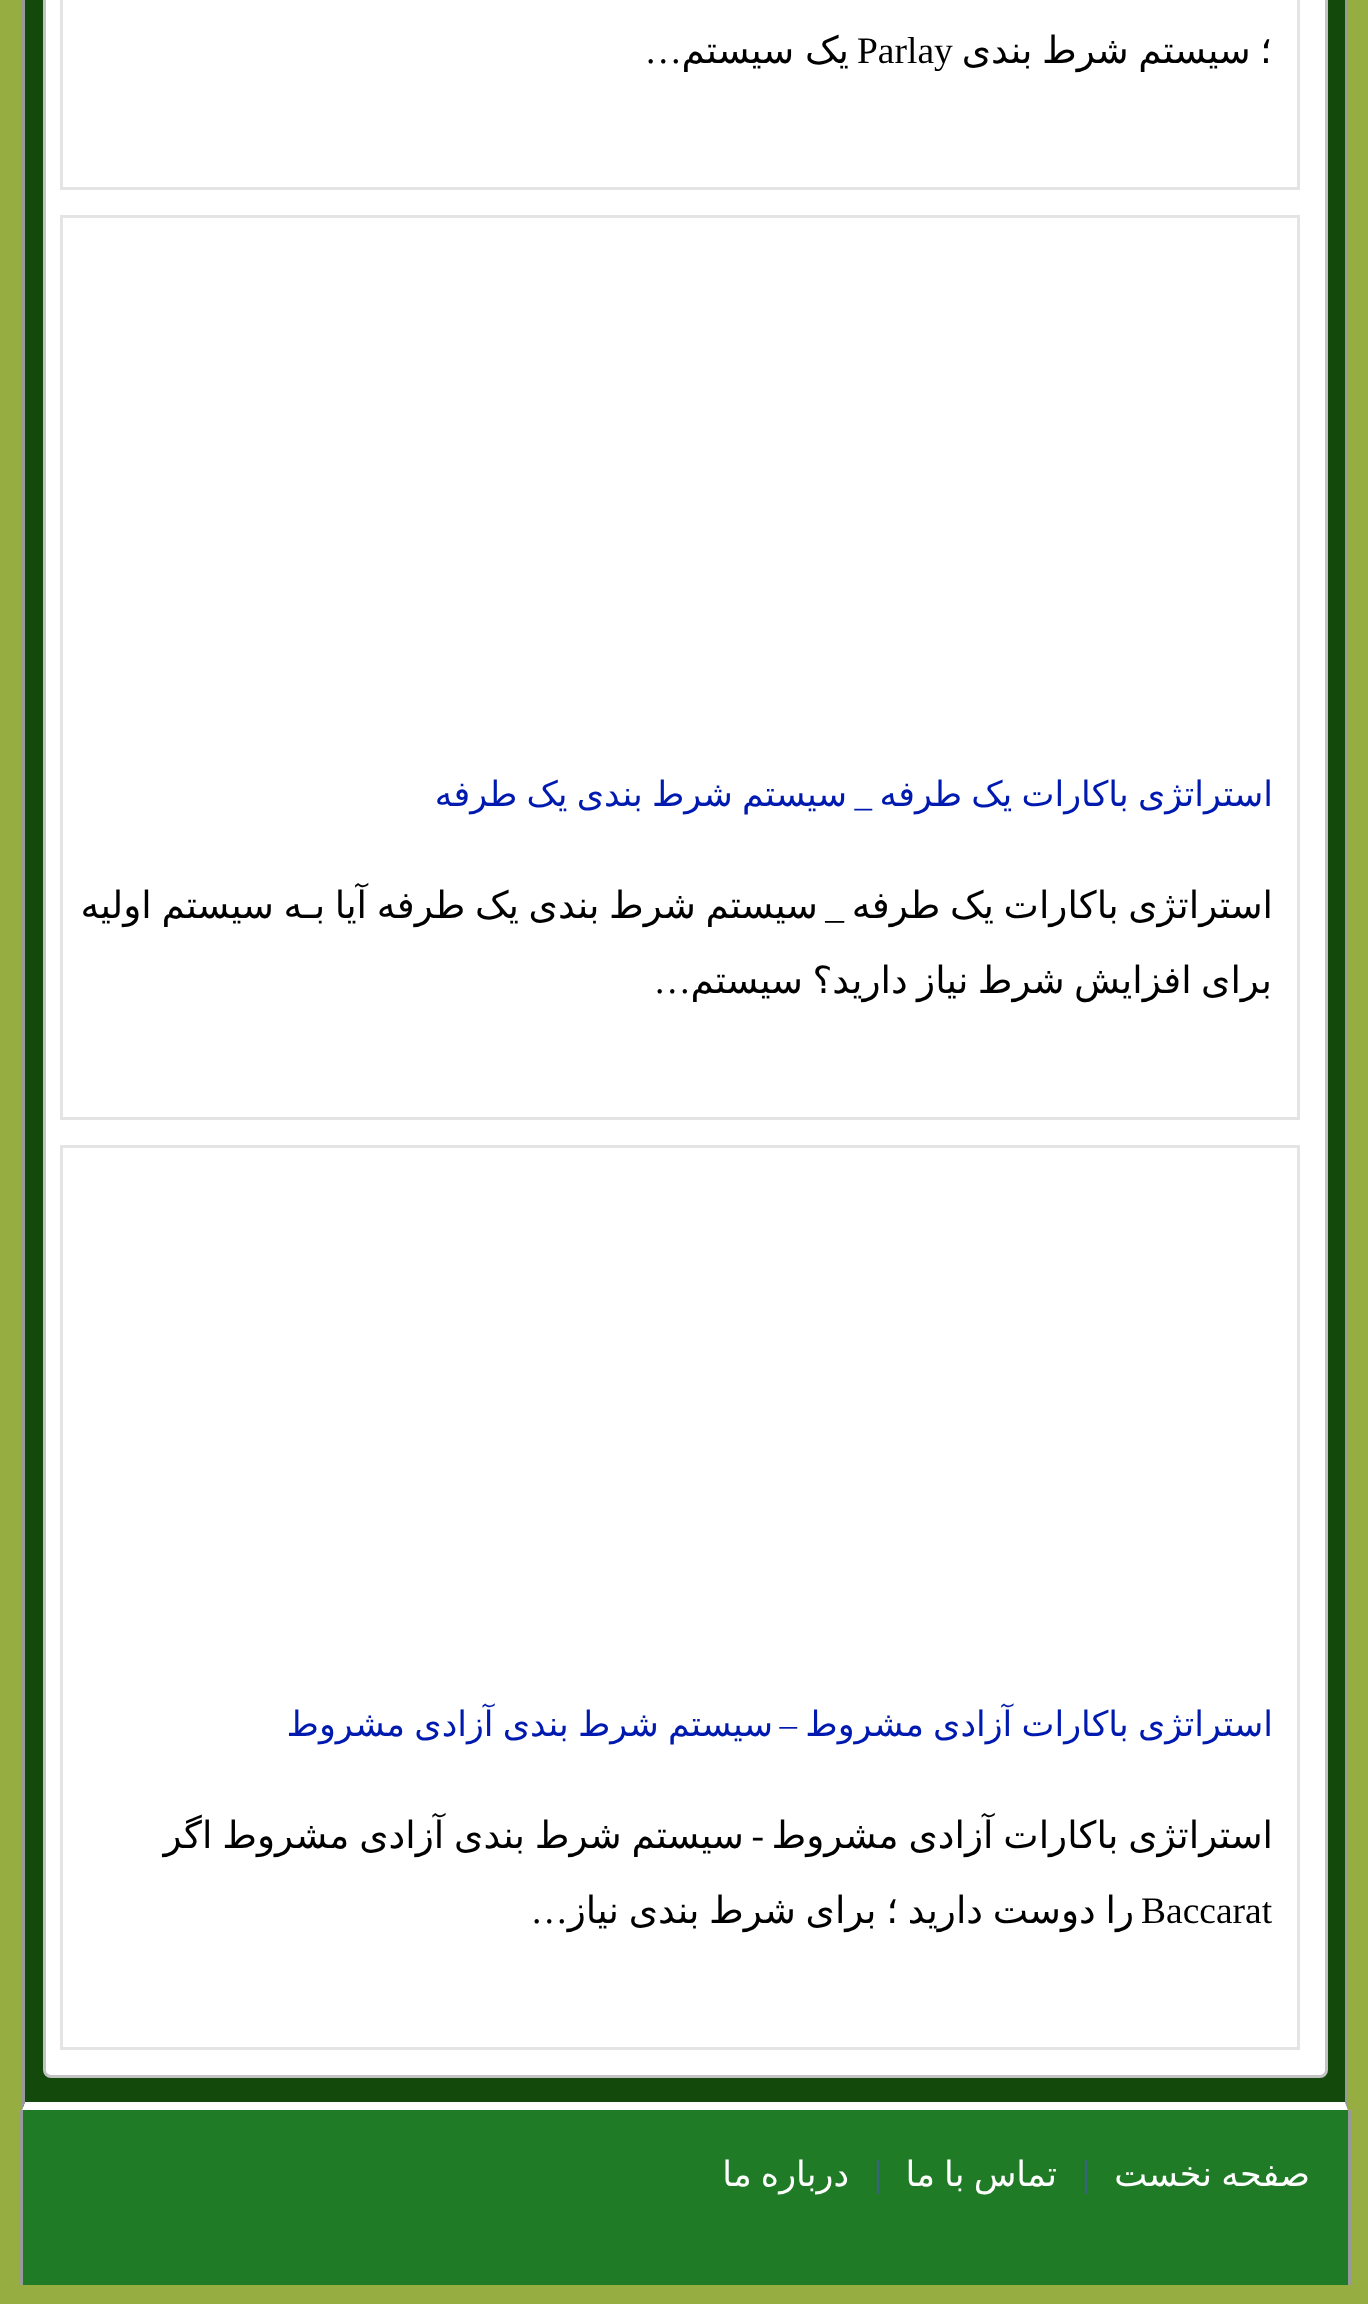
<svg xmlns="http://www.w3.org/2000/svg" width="1368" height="2304">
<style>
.a{font:37.5px DejaVu Sans;direction:rtl;fill:#000}
.b{font:37.5px Liberation Serif;fill:#000}
.c{font:37.5px Liberation Serif;direction:rtl;fill:#000}
.d{font:35px DejaVu Sans;direction:rtl;fill:#001aaf}
.e{font:35px Liberation Serif;direction:rtl;fill:#001aaf}
.f{font:35px DejaVu Sans;direction:rtl;fill:#fff}
.g{font:37.5px Liberation Serif;fill:#3f5d9d}
</style>
<rect width="100%" height="100%" fill="#96ae41"/>
<path fill="#134a0c" d="M23 0h1325v2110H23z"/>
<path fill="#999" d="M1348-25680v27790l-3-8v-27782z"/>
<path fill="#fff" d="M1348 2110h-1326l3-8h1320z"/>
<path fill="#999" d="M22 2110v-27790h3v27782z"/>
<rect fill="#fff" stroke="#c3c3c3" stroke-width="3" x="44.5" y="-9.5" width="1282" height="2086" rx="6.5"/>
<path fill="none" stroke="#e4e4e4" stroke-width="3" d="M61.5 -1.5h1237v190H61.5z"/>
<path fill="none" stroke="#e4e4e4" stroke-width="3" d="M61.5 216.5h1237v902H61.5z"/>
<path fill="none" stroke="#e4e4e4" stroke-width="3" d="M61.5 1146.5h1237v902H61.5z"/>
<path fill="#1f7b25" d="M23 2110h1325v175H23z"/>
<path fill="#999" d="M1348 2110h3v175H1348z"/>
<path fill="#999" d="M20 2110h3v175H20z"/>
<text class="a" x="1272" y="63" word-spacing="-2.5">؛ سیستم شرط بندی</text>
<text class="b" x="857" y="63">Parlay</text>
<text class="a" x="849" y="63" word-spacing="-1">یک سیستم</text>
<text class="c" x="682" y="63">…</text>
<text class="d" x="1273" y="806" word-spacing="-2">استراتژی باکارات یک طرفه</text>
<text class="e" x="872" y="806">_</text>
<text class="d" x="847" y="806" word-spacing="-2">سیستم شرط بندی یک طرفه</text>
<text class="a" x="1273" y="918" word-spacing="-2.25">استراتژی باکارات یک طرفه</text>
<text class="c" x="844" y="918">_</text>
<text class="a" x="818" y="918" word-spacing="-2.25">سیستم شرط بندی یک طرفه آیا بـه سیستم اولیه</text>
<text class="a" x="1272" y="993" word-spacing="-2.5">برای افزایش شرط نیاز دارید؟ سیستم</text>
<text class="c" x="691" y="993">…</text>
<text class="d" x="1273" y="1736" word-spacing="-2">استراتژی باکارات آزادی مشروط</text>
<text class="e" x="797" y="1736">–</text>
<text class="d" x="773" y="1736" word-spacing="-2">سیستم شرط بندی آزادی مشروط</text>
<text class="a" x="1273" y="1848" word-spacing="-2">استراتژی باکارات آزادی مشروط</text>
<text class="c" x="764" y="1848">-</text>
<text class="a" x="744" y="1848" word-spacing="-2">سیستم شرط بندی آزادی مشروط اگر</text>
<text class="b" x="1141" y="1923">Baccarat</text>
<text class="a" x="1134" y="1923" word-spacing="-2.25">را دوست دارید ؛ برای شرط بندی نیاز</text>
<text class="c" x="568" y="1923">…</text>
<text class="f" x="1310" y="2186" word-spacing="-2">صفحه نخست</text>
<text class="g" x="1082" y="2186">|</text>
<text class="f" x="1057" y="2186" word-spacing="-2">تماس با ما</text>
<text class="g" x="874" y="2186">|</text>
<text class="f" x="849" y="2186" word-spacing="-2">درباره ما</text>
</svg>
